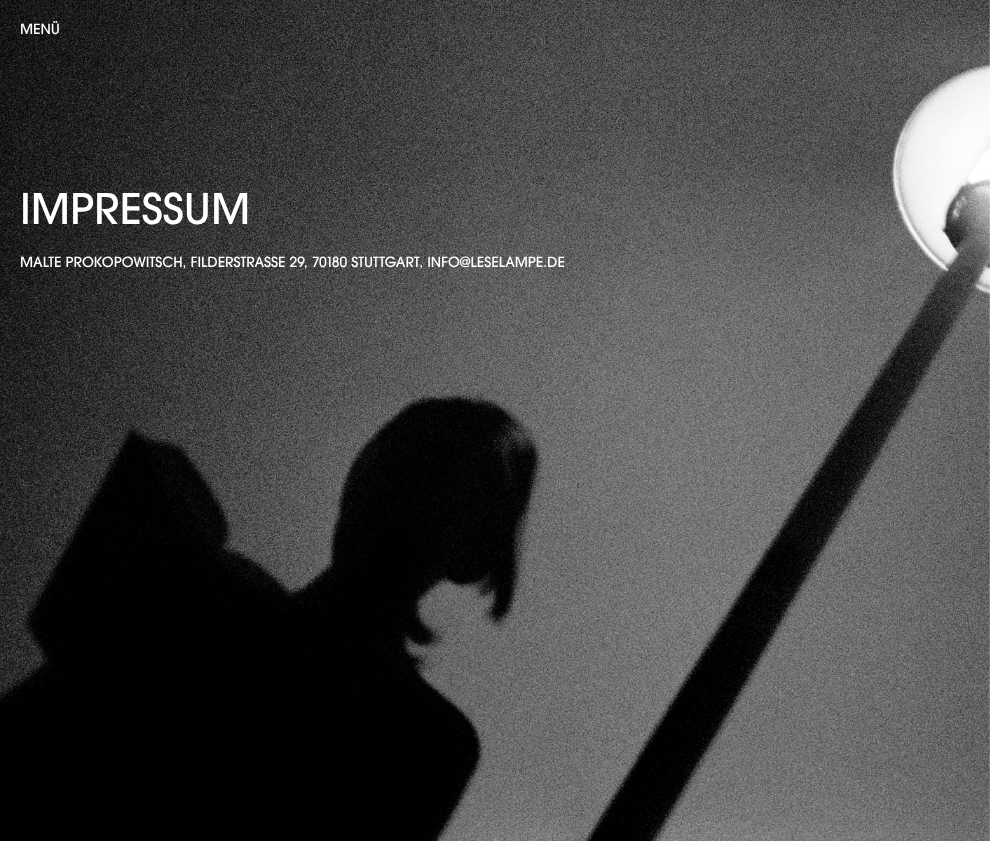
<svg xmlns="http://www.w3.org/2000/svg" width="990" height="841">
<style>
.a{font:500 14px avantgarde;fill:#fff}
.b{font:500 42px avantgarde;fill:#fff}
</style>
<rect width="100%" height="100%" fill="#fff"/>
<image href="1.png" x="0" y="0" width="990" height="841"/>
<text class="a" x="20" y="34">MENÜ</text>
<text class="b" x="20" y="224">IMPRESSUM</text>
<text class="a" x="20" y="267">MALTE PROKOPOWITSCH, FILDERSTRASSE 29, 70180 STUTTGART, INFO@LESELAMPE.DE</text>
</svg>
